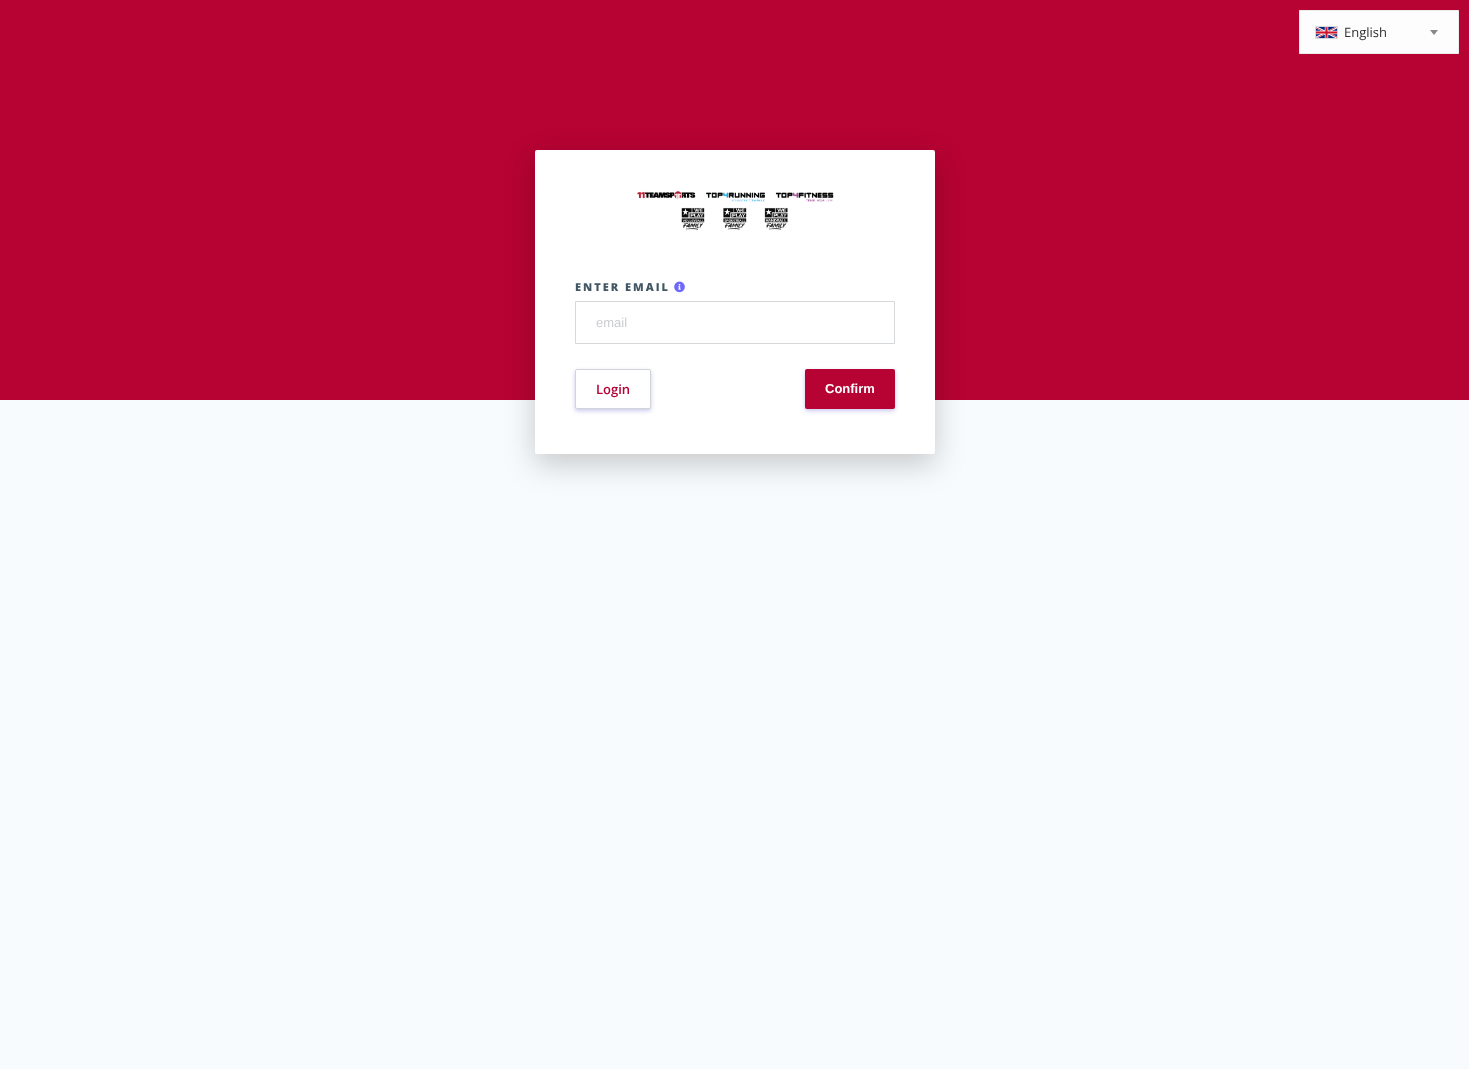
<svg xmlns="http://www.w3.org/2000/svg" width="1469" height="1069">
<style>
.a{font:13px Open Sans;fill:#2f2f2f}
.b{font:800 11px Open Sans;letter-spacing:2px;fill:#425763}
.c{font:13px Liberation Sans;fill:#cbcdd0}
.d{font:600 13px Open Sans;fill:#b60333}
.e{font:bold 13px Liberation Sans;fill:#fff}
</style>
<rect width="100%" height="100%" fill="#f8fbfd"/>
<path fill="#b60333" d="M0 0h1469v400H0z"/>
<path fill="#fdfdfd" stroke="#ededed" d="M1299.5 10.5h159v43H1299.5z"/>
<path fill="none" stroke="#d6d9db" d="M1315.5 26.5h22v12H1315.5z"/>
<image href="1.png" x="1316" y="27" width="21" height="11"/>
<path fill="#888" d="M1430 30h8l-4 5z"/>
<rect fill="#00000033" filter="blur(15px)" x="535" y="160" width="400" height="304" rx="2"/>
<rect fill="#fff" x="535" y="150" width="400" height="304" rx="2"/>
<image href="2.png" x="637" y="191" width="197" height="39"/>
<image href="3.png" x="674" y="281" width="11" height="12"/>
<path fill="none" stroke="#d6d9db" d="M575.5 301.5h319v42H575.5z"/>
<rect fill="#524dc64d" filter="blur(2px)" x="575" y="371" width="76" height="40" rx="2"/>
<rect fill="#fff" stroke="#d2d5d7" x="575.5" y="369.5" width="75" height="39" rx="1.5"/>
<rect fill="#524dc64d" filter="blur(2px)" x="805" y="371" width="90" height="40" rx="2"/>
<rect fill="#b60333" x="805" y="369" width="90" height="40" rx="2"/>
<text class="a" x="1344" y="37">English</text>
<text class="b" x="575" y="291">ENTER EMAIL</text>
<text class="c" x="596" y="327">email</text>
<text class="d" x="596" y="394">Login</text>
<text class="e" x="825" y="393">Confirm</text>
</svg>
